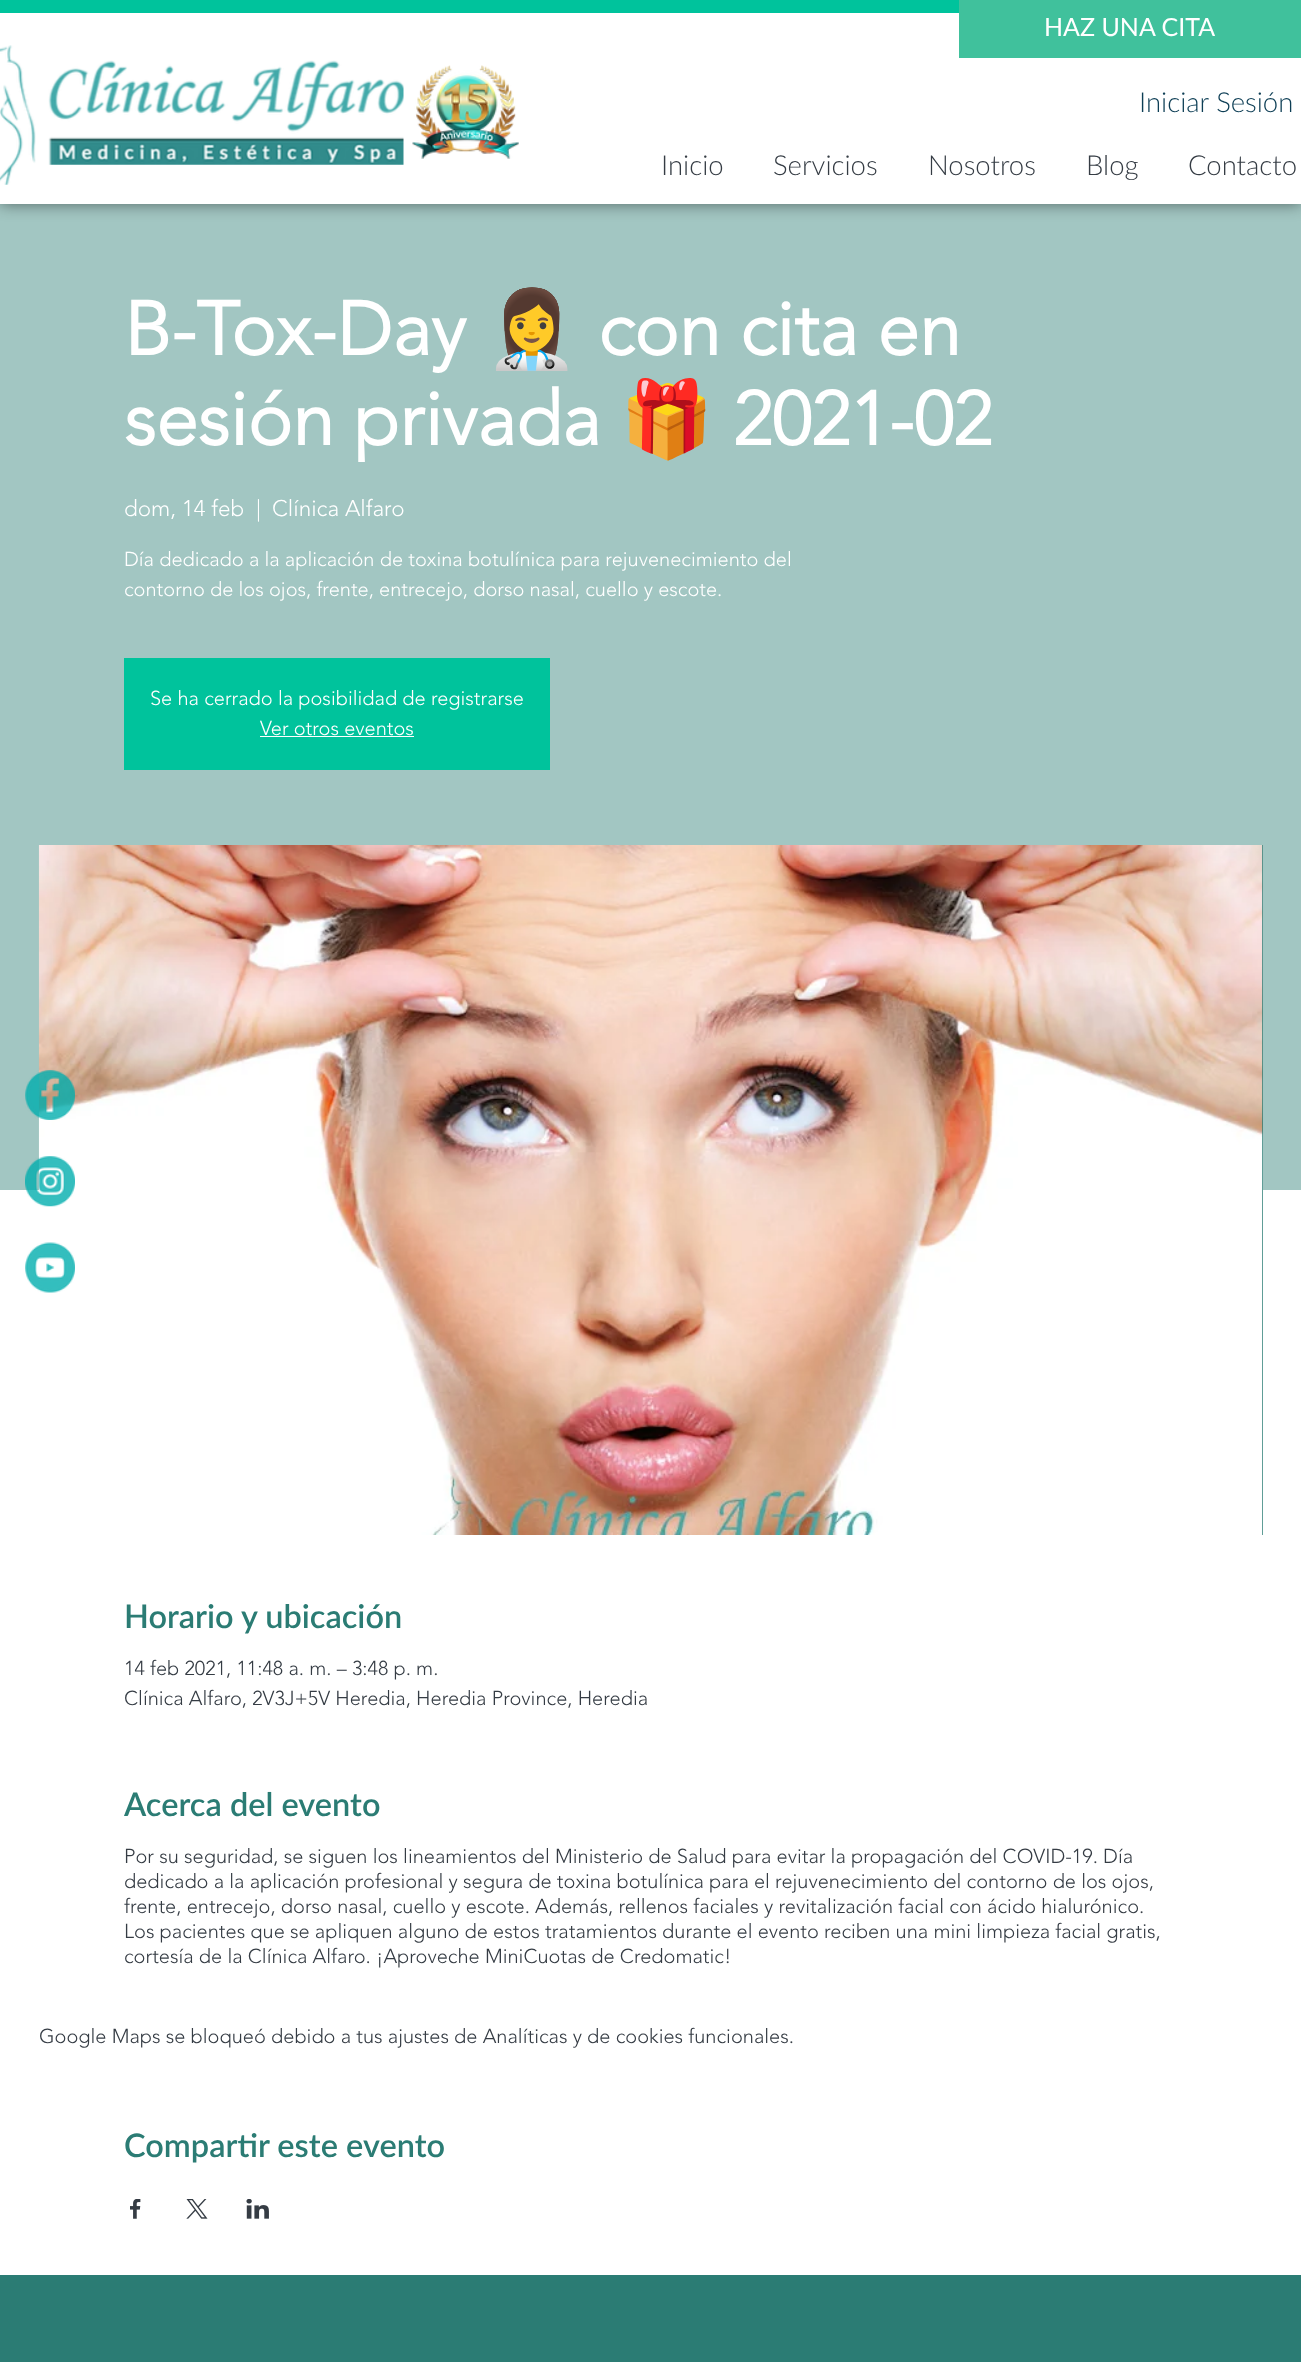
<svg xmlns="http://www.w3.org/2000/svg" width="1301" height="2362">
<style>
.a{font:25px Lato;fill:#fff}
.b{font:300 27.5px Lato;fill:#0d3e55}
.c{font:300 27.5px Lato;fill:#353c44}
.d{font:bold 75px 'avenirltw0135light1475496';fill:#fff}
.e{font:bold 75px Noto Color Emoji;fill:#fff}
.f{font:300 22.5px 'avenirltw0135light1475496';fill:#fff}
.g{font:300 20px 'avenirltw0135light1475496';fill:#fff}
.h{font:600 32.5px Lato;fill:#2b7c74}
.i{font:300 20px 'avenirltw0135light1475496';fill:#353c44}
</style>
<rect width="100%" height="100%" fill="#fff"/>
<path fill="#a2c6c2" d="M0 204h1301v986H0z"/>
<path fill="#0000007d" filter="blur(8px)" d="M0 0h1301v204H0z"/>
<path fill="#fff" d="M0 13h1301v191H0z"/>
<path fill="#40c19c" d="M959 0h342v58H959z"/>
<path fill="#00c39c" d="M0 0h959v13H0z"/>
<image href="1.png" x="0" y="45" width="36" height="140"/>
<image href="2.png" x="48" y="60" width="356" height="105"/>
<image href="3.png" x="412" y="65" width="107" height="94"/>
<path fill="#00c39c" d="M124 658h426v112H124z"/>
<path fill="#fff" d="M260 736h154v1H260z"/>
<path fill="#2b7c74" d="M1262 845h1v690H1262z"/>
<image href="4.png" x="38" y="845" width="1225" height="690"/>
<image href="5.png" x="130" y="2199" width="11" height="20"/>
<image href="6.png" x="186" y="2199" width="22" height="20"/>
<image href="7.png" x="246" y="2199" width="23" height="20"/>
<image href="8.png" x="25" y="1070" width="50" height="50"/>
<image href="9.png" x="25" y="1156" width="50" height="51"/>
<image href="10.png" x="25" y="1242" width="50" height="51"/>
<path fill="#2b7c74" d="M0 2275h1301v87H0z"/>
<text class="a" x="1044" y="36">HAZ UNA CITA</text>
<text class="b" x="1139" y="112">Iniciar Sesión</text>
<text class="c" x="661" y="175">Inicio</text>
<text class="c" x="773" y="175">Servicios</text>
<text class="c" x="928" y="175">Nosotros</text>
<text class="c" x="1086" y="175">Blog</text>
<text class="c" x="1188" y="175">Contacto</text>
<text class="d" x="124" y="355">B-Tox-Day</text>
<text class="e" x="485" y="355">👩‍⚕️</text>
<text class="d" x="598" y="355">con cita en</text>
<text class="d" x="124" y="445">sesión privada</text>
<text class="e" x="620" y="445">🎁</text>
<text class="d" x="733" y="445">2021-02</text>
<text class="f" x="124" y="516">dom, 14 feb</text>
<text class="f" x="256" y="516">|</text>
<text class="f" x="272" y="516">Clínica Alfaro</text>
<text class="g" x="124" y="566">Día dedicado a la aplicación de toxina botulínica para rejuvenecimiento del</text>
<text class="g" x="124" y="596">contorno de los ojos, frente, entrecejo, dorso nasal, cuello y escote.</text>
<text class="g" x="150" y="705">Se ha cerrado la posibilidad de registrarse</text>
<text class="g" x="260" y="735">Ver otros eventos</text>
<text class="h" x="124" y="1628">Horario y ubicación</text>
<text class="i" x="124" y="1675">14 feb 2021, 11:48 a. m. – 3:48 p. m.</text>
<text class="i" x="124" y="1705">Clínica Alfaro, 2V3J+5V Heredia, Heredia Province, Heredia</text>
<text class="h" x="124" y="1816">Acerca del evento</text>
<text class="i" x="124" y="1863">Por su seguridad, se siguen los lineamientos del Ministerio de Salud para evitar la propagación del COVID-19. Día</text>
<text class="i" x="124" y="1888">dedicado a la aplicación profesional y segura de toxina botulínica para el rejuvenecimiento del contorno de los ojos,</text>
<text class="i" x="124" y="1913">frente, entrecejo, dorso nasal, cuello y escote. Además, rellenos faciales y revitalización facial con ácido hialurónico.</text>
<text class="i" x="124" y="1938">Los pacientes que se apliquen alguno de estos tratamientos durante el evento reciben una mini limpieza facial gratis,</text>
<text class="i" x="124" y="1963">cortesía de la Clínica Alfaro. ¡Aproveche MiniCuotas de Credomatic!</text>
<text class="i" x="39" y="2043">Google Maps se bloqueó debido a tus ajustes de Analíticas y de cookies funcionales.</text>
<text class="h" x="124" y="2157">Compartir este evento</text>
</svg>
